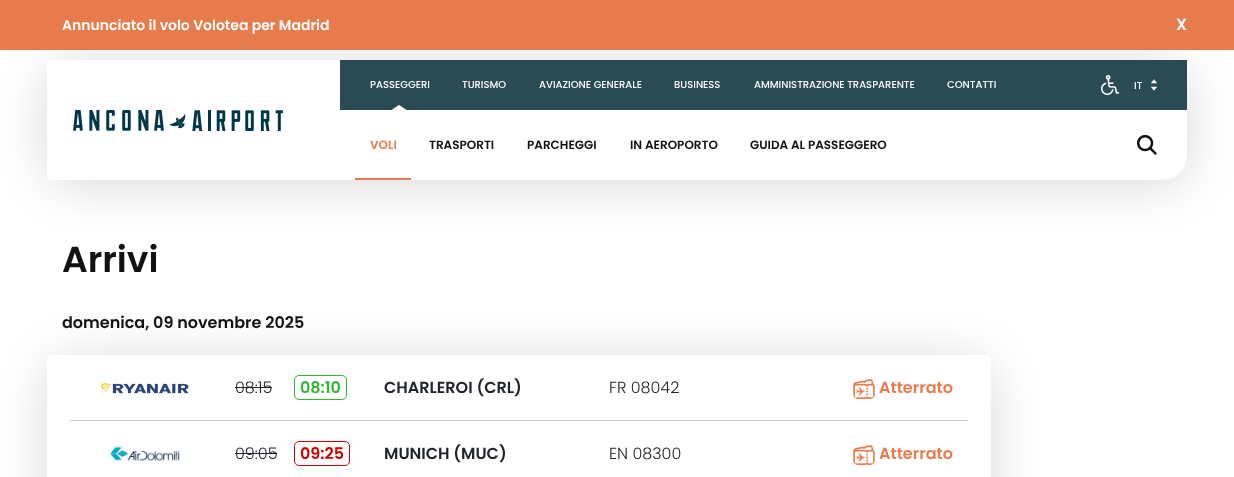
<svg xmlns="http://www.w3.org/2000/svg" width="1234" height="477">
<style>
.a{font:600 14px Poppins;fill:#fff}
.b{font:600 16px Poppins;fill:#fff}
.c{font:500 10px Poppins;fill:#fff}
.d{font:600 12px Poppins;fill:#e87b4b}
.e{font:600 12px Poppins;fill:#121212}
.f{font:600 36px Poppins;fill:#121212}
.g{font:600 16px Poppins;fill:#121212}
.h{font:300 16px Poppins;fill:#212529}
.i{font:600 16px Poppins;fill:#31b533}
.j{font:600 16px Poppins;fill:#212529}
.k{font:600 16px Poppins;fill:#e87b4b}
.l{font:600 16px Poppins;fill:#c00}
</style>
<rect width="100%" height="100%" fill="#fff"/>
<rect fill="#00000026" filter="blur(25px)" x="47" y="65" width="1140" height="120" rx="25"/>
<path fill="#e87b4b" d="M0 0h1234v50H0z"/>
<path fill="#fff" d="M52 60h1130c3 0 5 2 5 5v90c0 14-11 25-25 25h-1110c-3 0-5-2-5-5v-110c0-3 2-5 5-5z"/>
<image href="1.png" x="73" y="110" width="210" height="21"/>
<path fill="#2a4a54" d="M340 60h847v50H340z"/>
<image href="2.png" x="392" y="105" width="14" height="5"/>
<image href="3.png" x="1101" y="75" width="18" height="20"/>
<image href="4.png" x="1151" y="79" width="6" height="12"/>
<path fill="#e87b4b" d="M355 178h56v2H355z"/>
<image href="5.png" x="1137" y="134" width="20" height="21"/>
<rect fill="#00000026" filter="blur(25px)" x="47" y="360" width="944" height="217" rx="25"/>
<path fill="#fff" d="M52 355h934c3 0 5 2 5 5v117c0 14-11 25-25 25h-914c-3 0-5-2-5-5v-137c0-3 2-5 5-5z"/>
<path fill="#ccc" d="M70 420h898v1H70z"/>
<image href="6.png" x="101" y="383" width="88" height="11"/>
<path fill="#212529" d="M235 387h37v1H235z"/>
<rect fill="none" stroke="#31b533" x="294.5" y="375.5" width="52" height="24" rx="4.5"/>
<image href="7.png" x="853" y="379" width="22" height="20"/>
<image href="8.png" x="110" y="446" width="70" height="15"/>
<path fill="#212529" d="M235 453h42v1H235z"/>
<rect fill="none" stroke="#c00" x="294.5" y="441.5" width="55" height="24" rx="4.5"/>
<image href="7.png" x="853" y="445" width="22" height="20"/>
<text class="a" x="62" y="30">Annunciato il volo Volotea per Madrid</text>
<text class="b" x="1176" y="30">X</text>
<text class="c" x="370" y="88">PASSEGGERI</text>
<text class="c" x="462" y="88">TURISMO</text>
<text class="c" x="539" y="88">AVIAZIONE GENERALE</text>
<text class="c" x="674" y="88">BUSINESS</text>
<text class="c" x="754" y="88">AMMINISTRAZIONE TRASPARENTE</text>
<text class="c" x="947" y="88">CONTATTI</text>
<text class="c" x="1134" y="89">IT</text>
<text class="d" x="370" y="149">VOLI</text>
<text class="e" x="429" y="149">TRASPORTI</text>
<text class="e" x="527" y="149">PARCHEGGI</text>
<text class="e" x="630" y="149">IN AEROPORTO</text>
<text class="e" x="750" y="149">GUIDA AL PASSEGGERO</text>
<text class="f" x="62" y="272">Arrivi</text>
<text class="g" x="62" y="328">domenica, 09 novembre 2025</text>
<text class="h" x="235" y="393">08:15</text>
<text class="i" x="300" y="393">08:10</text>
<text class="j" x="384" y="393">CHARLEROI (CRL)</text>
<text class="h" x="609" y="393">FR 08042</text>
<text class="k" x="879" y="393">Atterrato</text>
<text class="h" x="235" y="459">09:05</text>
<text class="l" x="300" y="459">09:25</text>
<text class="j" x="384" y="459">MUNICH (MUC)</text>
<text class="h" x="609" y="459">EN 08300</text>
<text class="k" x="879" y="459">Atterrato</text>
</svg>
